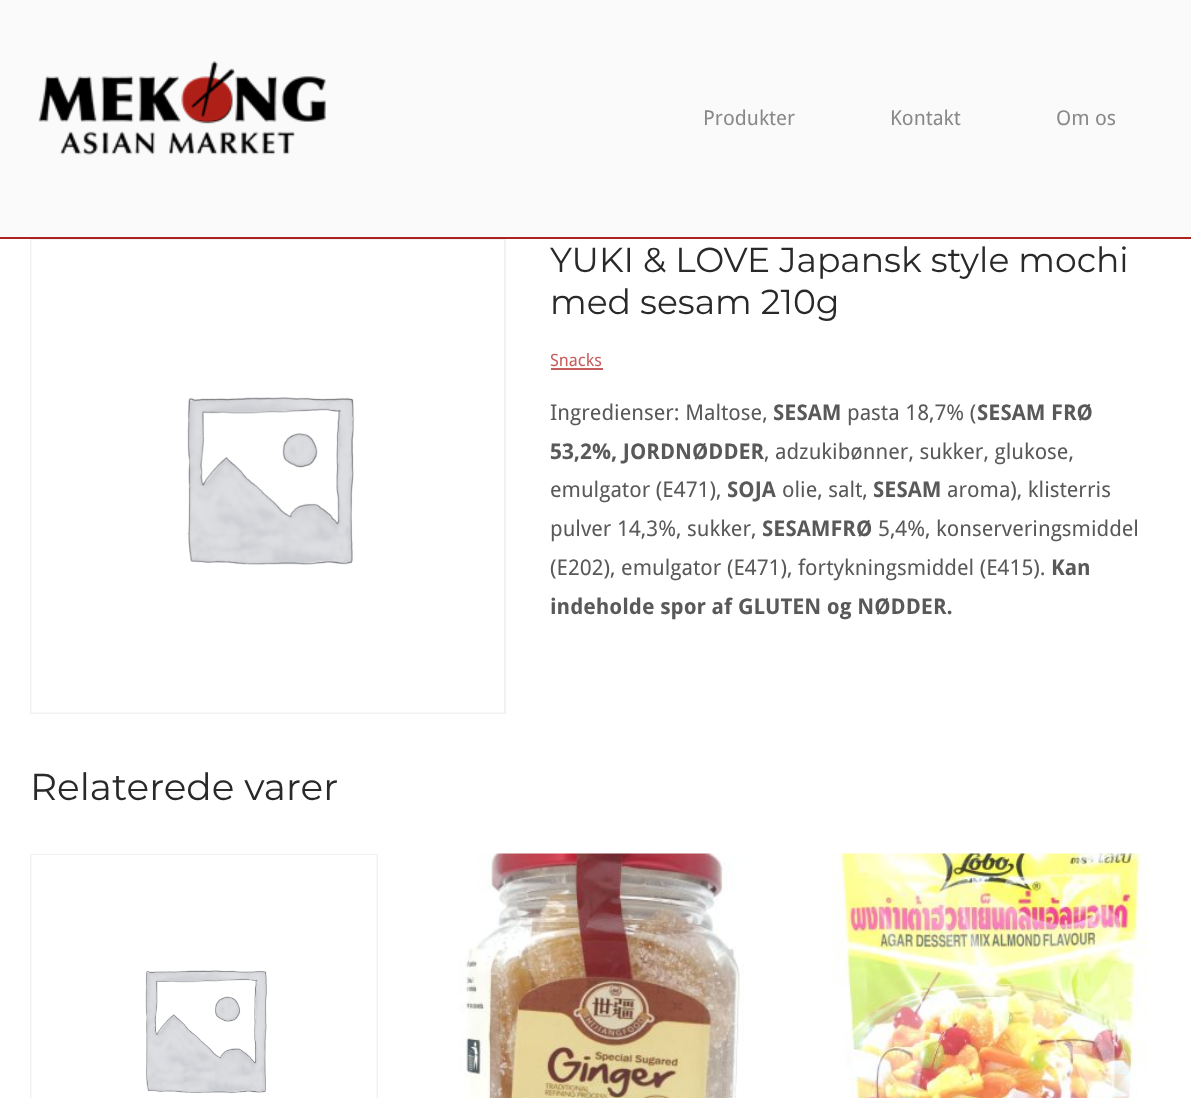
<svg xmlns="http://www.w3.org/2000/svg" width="1191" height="1098">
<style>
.a{font:20.5px Droid Sans;fill:#898989}
.b{font:100 34.6px Montserrat;fill:#292929}
.c{font:17px Droid Sans;fill:#c75d5d}
.d{font:21.6px Droid Sans;fill:#595959}
.e{font:bold 21.6px Droid Sans;fill:#595959}
.f{font:100 37.5px Montserrat;fill:#292929}
</style>
<rect width="100%" height="100%" fill="#fff"/>
<path fill="#fafafa" d="M0 0h1191v237H0z"/>
<path fill="#ab221f" d="M0 237h1191v2H0z"/>
<image href="1.png" x="38" y="61" width="288" height="94"/>
<path fill="none" stroke="#f2f2f2" stroke-width="2" d="M31 240h474v473H31z"/>
<image href="2.png" x="31" y="240" width="473" height="473"/>
<path fill="#c75d5d" d="M551 368h52v2H551z"/>
<path fill="none" stroke="#f2f2f2" stroke-width="2" d="M31 855h346v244H31z"/>
<image href="3.png" x="31" y="855" width="346" height="243"/>
<image href="4.png" x="459" y="853" width="285" height="245"/>
<image href="5.png" x="832" y="853" width="316" height="245"/>
<text class="a" x="703" y="125">Produkter</text>
<text class="a" x="890" y="125">Kontakt</text>
<text class="a" x="1056" y="125">Om os</text>
<text class="b" x="550" y="272">YUKI &amp; LOVE Japansk style mochi</text>
<text class="b" x="550" y="314">med sesam 210g</text>
<text class="c" x="550" y="366">Snacks</text>
<text class="d" x="550" y="420">Ingredienser: Maltose,</text>
<text class="e" x="773" y="420">SESAM</text>
<text class="d" x="847" y="420">pasta 18,7% (</text>
<text class="e" x="977" y="420">SESAM FRØ</text>
<text class="e" x="550" y="459">53,2%, JORDNØDDER</text>
<text class="d" x="764" y="459">, adzukibønner, sukker, glukose,</text>
<text class="d" x="550" y="497">emulgator (E471),</text>
<text class="e" x="727" y="497">SOJA</text>
<text class="d" x="782" y="497">olie, salt,</text>
<text class="e" x="873" y="497">SESAM</text>
<text class="d" x="947" y="497">aroma), klisterris</text>
<text class="d" x="550" y="536">pulver 14,3%, sukker,</text>
<text class="e" x="762" y="536">SESAMFRØ</text>
<text class="d" x="878" y="536">5,4%, konserveringsmiddel</text>
<text class="d" x="550" y="575">(E202), emulgator (E471), fortykningsmiddel (E415).</text>
<text class="e" x="1051" y="575">Kan</text>
<text class="e" x="550" y="614">indeholde spor af GLUTEN og NØDDER.</text>
<text class="f" x="30" y="800">Relaterede varer</text>
</svg>
